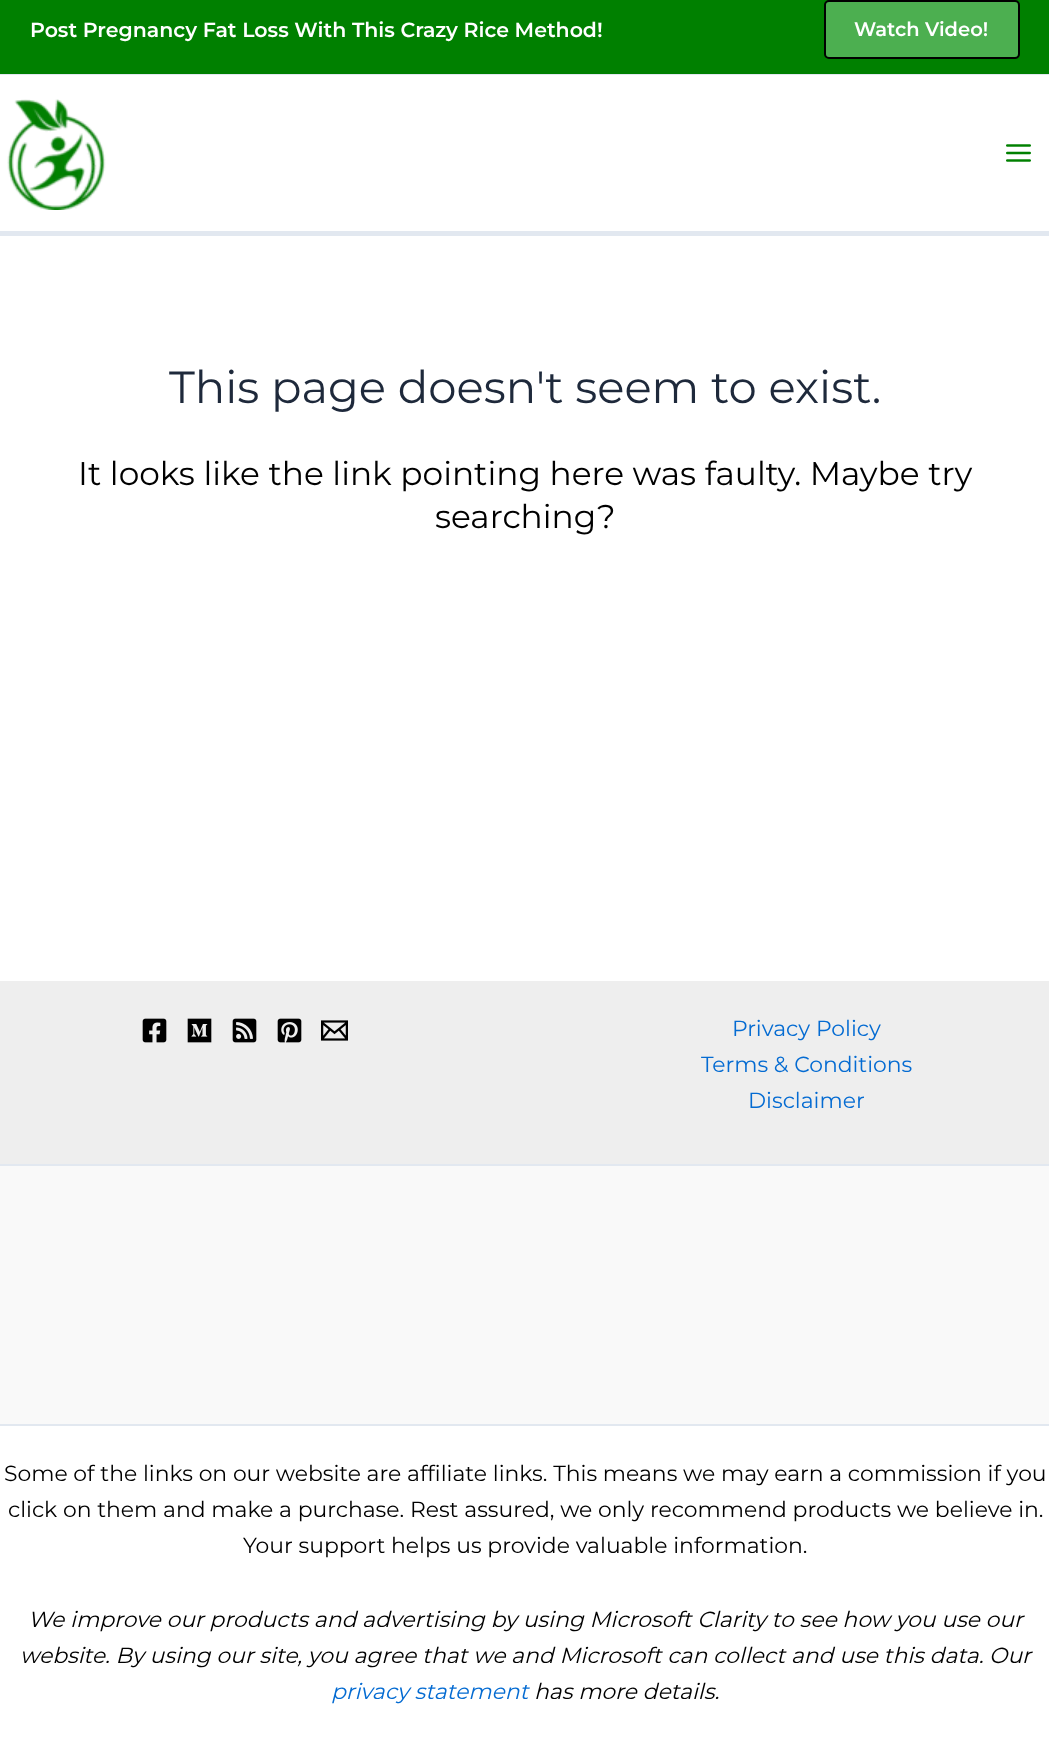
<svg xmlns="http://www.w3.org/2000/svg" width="1049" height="1755">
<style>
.a{font:600 20.5px Montserrat;fill:#fff}
.b{font:600 19.5px Montserrat;fill:#fff}
.c{font:45px Montserrat;fill:#1e293b}
.d{font:32.8px Montserrat;fill:#000}
.e{font:21.9px Montserrat;fill:#046bd2}
.f{font:21.9px Montserrat;fill:#000}
.g{font:italic 21.9px Montserrat;fill:#000}
.h{font:italic 21.9px Montserrat;fill:#046bd2}
</style>
<rect width="100%" height="100%" fill="#fff"/>
<path fill="#008000" d="M0 0h1049v74H0z"/>
<path fill="#e2e8f0" d="M0 74h1049v1H0z"/>
<rect fill="#4caf50" stroke="#010101" stroke-width="2" x="825" y="1" width="194" height="57" rx="4"/>
<path fill="#e2e8f0" d="M0 231h1049v5H0z"/>
<image href="1.png" x="7" y="99" width="99" height="111"/>
<image href="2.png" x="1006" y="144" width="25" height="18"/>
<path fill="#eee" d="M0 981h1049v183H0z"/>
<image href="3.png" x="142" y="1018" width="25" height="25"/>
<image href="4.png" x="187" y="1018" width="25" height="25"/>
<image href="5.png" x="232" y="1018" width="25" height="25"/>
<image href="6.png" x="277" y="1018" width="25" height="25"/>
<image href="7.png" x="321" y="1020" width="27" height="21"/>
<path fill="#f9f9f9" d="M0 1166h1049v258H0z"/>
<path fill="#e2e8f0" d="M0 1164h1049v2H0z"/>
<path fill="#e2e8f0" d="M0 1424h1049v2H0z"/>
<text class="a" x="30" y="37">Post Pregnancy Fat Loss With This Crazy Rice Method!</text>
<text class="b" x="854" y="36">Watch Video!</text>
<text class="c" x="169" y="403">This page doesn't seem to exist.</text>
<text class="d" x="78" y="485">It looks like the link pointing here was faulty. Maybe try</text>
<text class="d" x="435" y="528">searching?</text>
<text class="e" x="732" y="1036">Privacy Policy</text>
<text class="e" x="701" y="1072">Terms &amp; Conditions</text>
<text class="e" x="748" y="1108">Disclaimer</text>
<text class="f" x="4" y="1481">Some of the links on our website are affiliate links. This means we may earn a commission if you</text>
<text class="f" x="8" y="1517">click on them and make a purchase. Rest assured, we only recommend products we believe in.</text>
<text class="f" x="243" y="1553">Your support helps us provide valuable information.</text>
<text class="g" x="28" y="1627">We improve our products and advertising by using Microsoft Clarity to see how you use our</text>
<text class="g" x="20" y="1663">website. By using our site, you agree that we and Microsoft can collect and use this data. Our</text>
<text class="h" x="331" y="1699">privacy statement</text>
<text class="g" x="534" y="1699">has more details.</text>
</svg>
